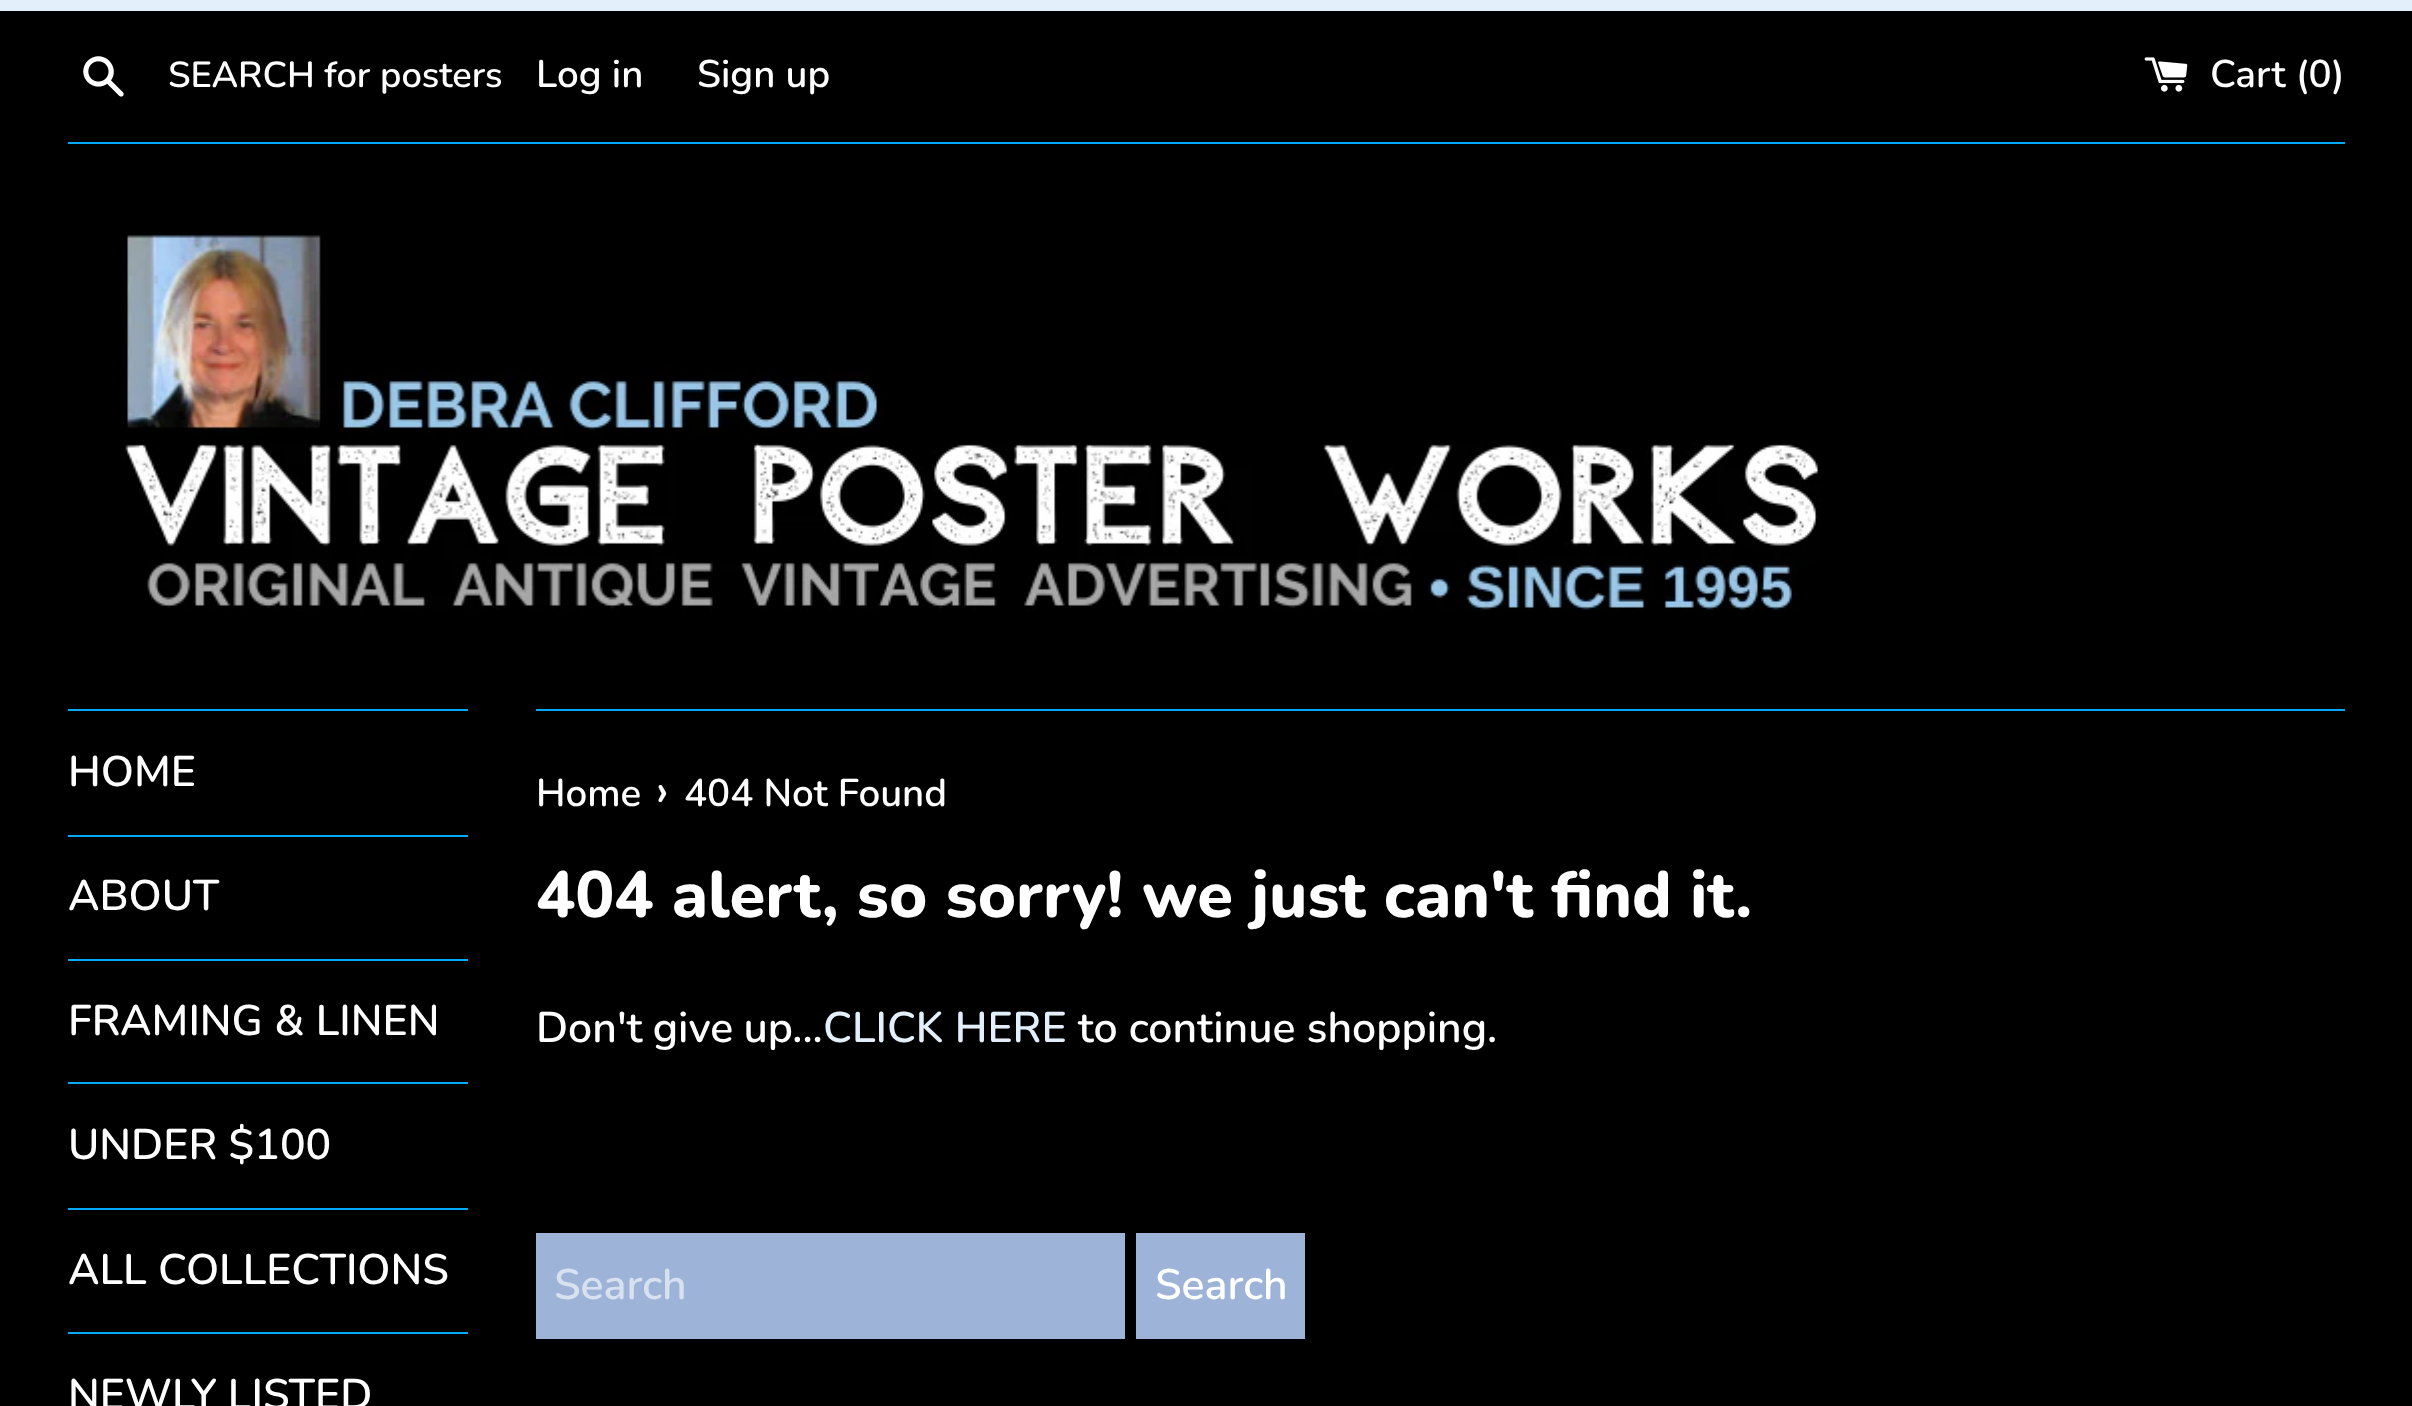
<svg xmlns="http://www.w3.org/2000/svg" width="2412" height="1406">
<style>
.a{font:600 36.25px Nunito;fill:#fff}
.b{font:600 38.5px Nunito;fill:#fff}
.c{font:600 42.75px Nunito;fill:#fff}
.d{font:600 47px Nunito;fill:#fff}
.e{font:800 65.25px Nunito;fill:#fff}
.f{font:600 42.75px Nunito;fill:#e3f0fc}
.g{font:600 42.75px Nunito;fill:#d8e1ef}
</style>
<rect width="100%" height="100%" fill="#000"/>
<path fill="#e3f0fc" d="M0 0h2412v11H0z"/>
<image href="1.png" x="83" y="56" width="41" height="41"/>
<image href="2.png" x="2144" y="57" width="44" height="35"/>
<path fill="#00aaf8" d="M68 142h2277v2H68z"/>
<image href="3.png" x="124" y="234" width="1697" height="377"/>
<path fill="#00aaf8" d="M68 709h400v2H68z"/>
<path fill="#00aaf8" d="M68 835h400v2H68z"/>
<path fill="#00aaf8" d="M68 959h400v2H68z"/>
<path fill="#00aaf8" d="M68 1082h400v2H68z"/>
<path fill="#00aaf8" d="M68 1208h400v2H68z"/>
<path fill="#00aaf8" d="M68 1332h400v2H68z"/>
<path fill="#00aaf8" d="M536 709h1809v2H536z"/>
<path fill="#9db3d7" d="M536 1233h589v106H536z"/>
<path fill="#9db3d7" d="M1136 1233h169v106H1136z"/>
<text class="a" x="168" y="87">SEARCH for posters</text>
<text class="b" x="536" y="87">Log in</text>
<text class="b" x="697" y="87">Sign up</text>
<text class="b" x="2210" y="87">Cart (0)</text>
<text class="c" x="68" y="786">HOME</text>
<text class="c" x="68" y="910">ABOUT</text>
<text class="c" x="68" y="1035">FRAMING &amp; LINEN</text>
<text class="c" x="68" y="1159">UNDER $100</text>
<text class="c" x="68" y="1284">ALL COLLECTIONS</text>
<text class="c" x="68" y="1409">NEWLY LISTED</text>
<text class="b" x="536" y="806">Home</text>
<text class="d" x="656" y="806">›</text>
<text class="b" x="684" y="806">404 Not Found</text>
<text class="e" x="536" y="917">404 alert, so sorry! we just can't find it.</text>
<text class="c" x="536" y="1042" word-spacing="-1">Don't give up...</text>
<text class="f" x="823" y="1042">CLICK HERE</text>
<text class="c" x="1078" y="1042">to continue shopping.</text>
<text class="g" x="554" y="1299">Search</text>
<text class="c" x="1155" y="1299">Search</text>
</svg>
